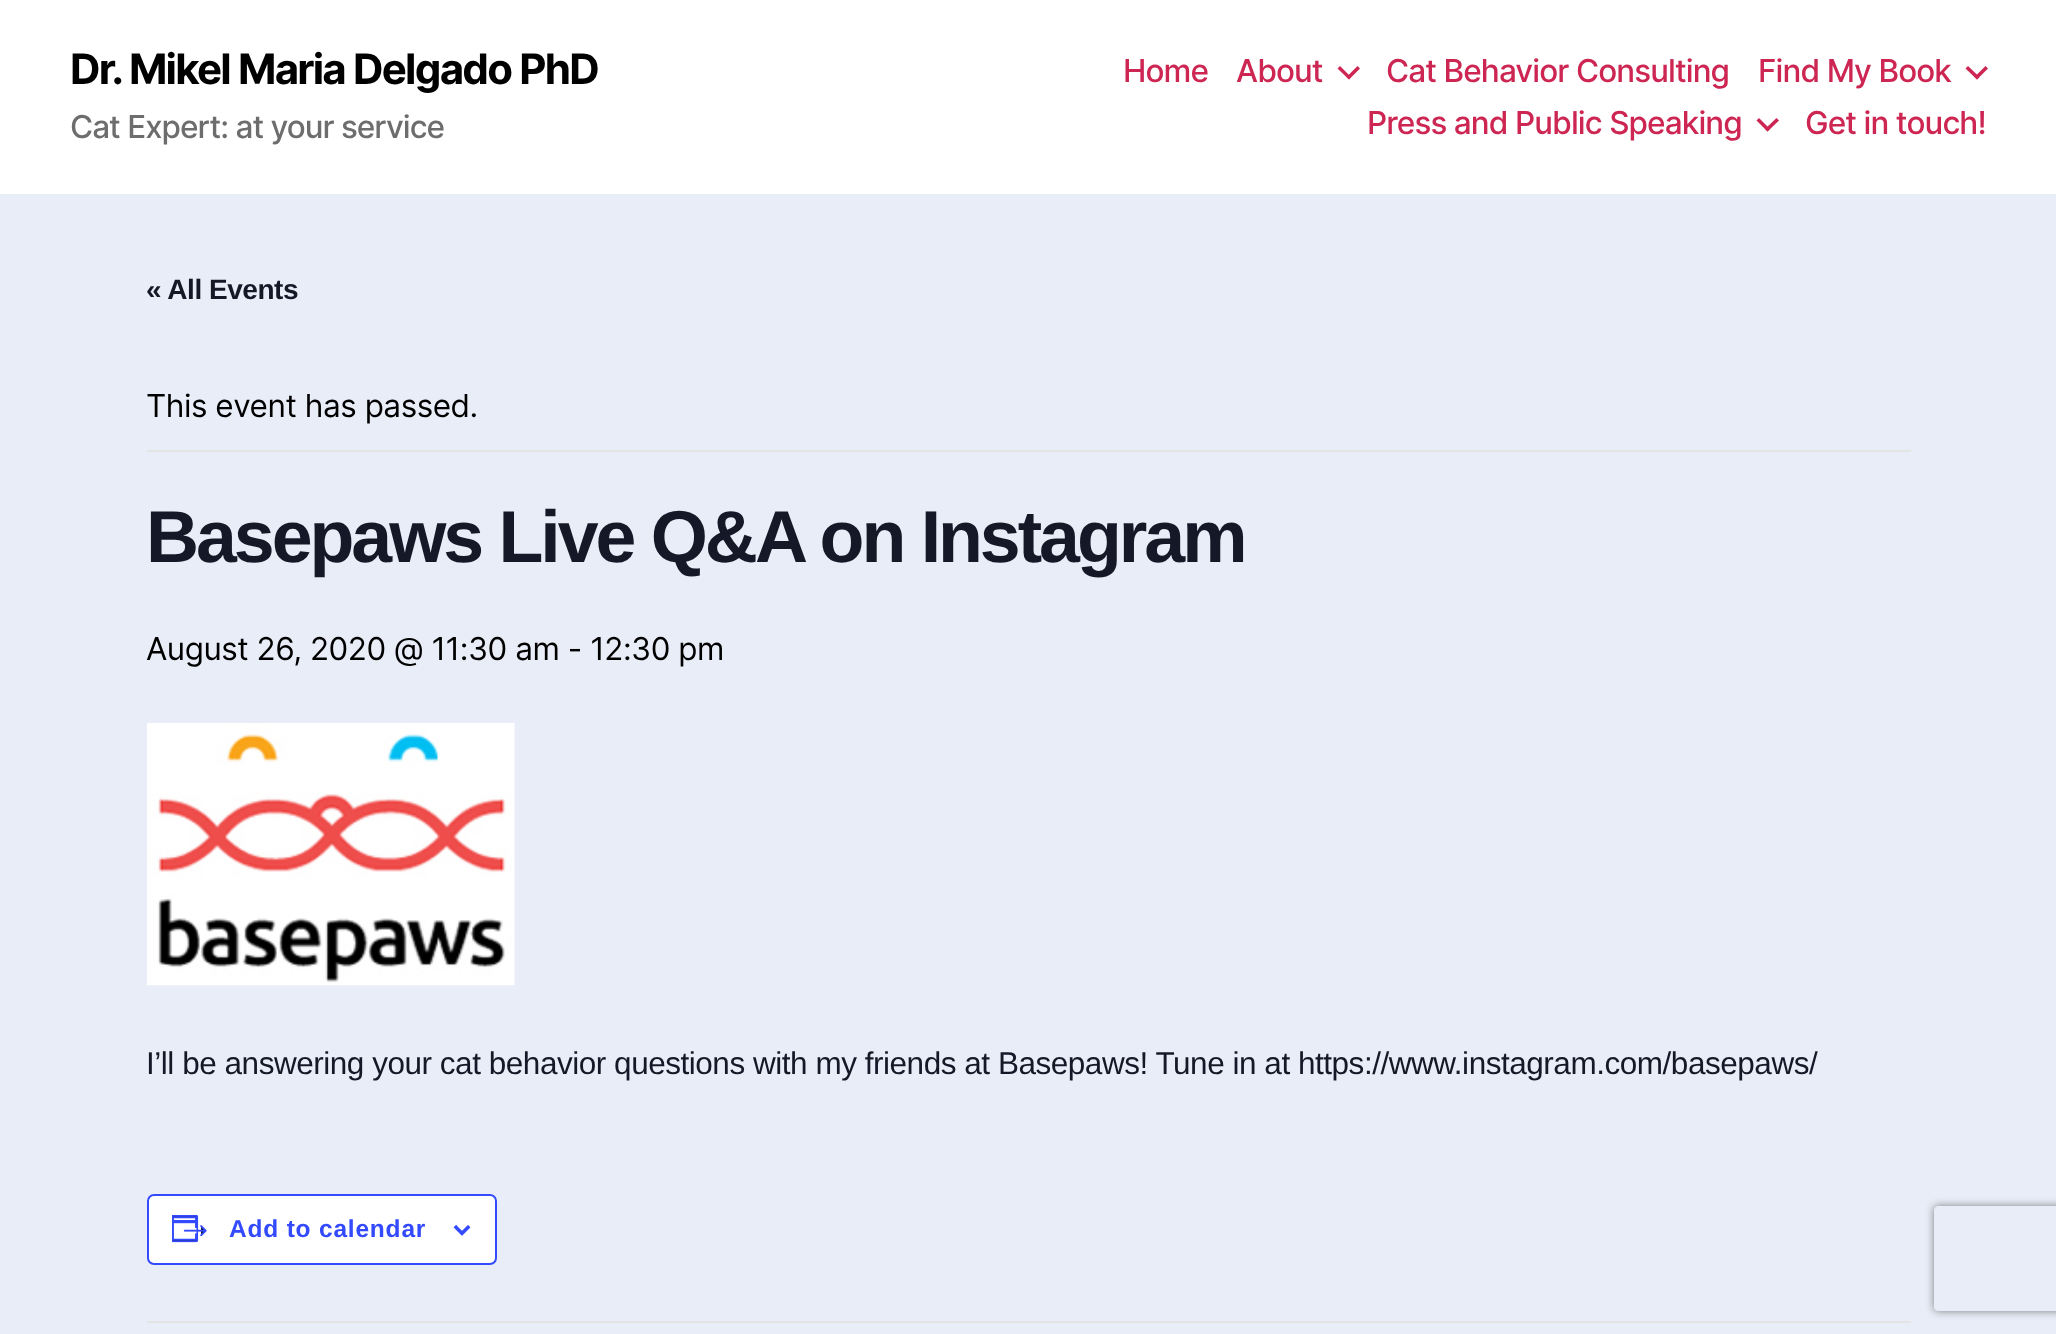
<svg xmlns="http://www.w3.org/2000/svg" width="2056" height="1334">
<style>
.a{font:bold 42px Inter;letter-spacing:-1.75px;fill:#000}
.b{font:500 31.5px Inter;letter-spacing:-1px;fill:#6d6d6d}
.c{font:500 31.5px Inter;letter-spacing:-0.9px;fill:#cd2653}
.d{font:bold 28px Liberation Sans;letter-spacing:-0.47px;fill:#141827}
.e{font:31.5px Inter;letter-spacing:-0.47px;fill:#000}
.f{font:bold 73.5px Liberation Sans;letter-spacing:-3.05px;fill:#141827}
.g{font:31.5px Liberation Sans;letter-spacing:-0.47px;fill:#141827}
.h{font:bold 24.5px Liberation Sans;letter-spacing:0.8px;fill:#334aff}
</style>
<defs>
<clipPath id="clip1"><path d="M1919 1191h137v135h-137zm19 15h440c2 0 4 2 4 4v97c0 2-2 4-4 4h-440c-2 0-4-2-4-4v-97c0-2 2-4 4-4z" clip-rule="evenodd"/></clipPath>
</defs>
<rect width="100%" height="100%" fill="#e8edf7"/>
<path fill="#fff" d="M0 0h2056v194H0z"/>
<path fill="#cd2653" d="M1337.5 68.5l2.5-2.5l11 11l-2 2.5z"/>
<path fill="#cd2653" d="M1346.5 77l11-11l2.5 2.5l-11 11z"/>
<path fill="#cd2653" d="M1965.5 68.5l2.5-2.5l11.5 11l-2.5 2.5z"/>
<path fill="#cd2653" d="M1974.5 77l11-11l2.5 2.5l-11 11z"/>
<path fill="#cd2653" d="M1756.5 120.5l2.5-2.5l11 11l-2.5 2.5z"/>
<path fill="#cd2653" d="M1765 129l11.5-11l2.5 2.5l-11.5 11z"/>
<path fill="#e4e4e4" d="M147 450h1764v2H147z"/>
<image href="1.png" x="147" y="723" width="368" height="263"/>
<rect fill="#fff" stroke="#334aff" stroke-width="2" x="148" y="1195" width="348" height="69" rx="6"/>
<image href="2.png" x="172" y="1215" width="35" height="28"/>
<image href="3.png" x="453" y="1225" width="18" height="11"/>
<path fill="#e4e4e4" d="M147 1321h1764v2H147z"/>
<g clip-path="url(#clip1)">
<rect fill="#808080" filter="blur(4.5px)" x="1934" y="1206" width="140" height="105" rx="4"/>
</g>
<text class="a" x="70" y="84">Dr. Mikel Maria Delgado PhD</text>
<text class="b" x="70" y="138">Cat Expert: at your service</text>
<text class="c" x="1123" y="82">Home</text>
<text class="c" x="1236" y="82">About</text>
<text class="c" x="1386" y="82">Cat Behavior Consulting</text>
<text class="c" x="1758" y="82">Find My Book</text>
<text class="c" x="1367" y="134">Press and Public Speaking</text>
<text class="c" x="1805" y="134">Get in touch!</text>
<text class="d" x="146" y="299">« All Events</text>
<text class="e" x="146" y="417">This event has passed.</text>
<text class="f" x="146" y="562">Basepaws Live Q&amp;A on Instagram</text>
<text class="e" x="146" y="660">August 26, 2020 @ 11:30 am - 12:30 pm</text>
<text class="g" x="146" y="1074">I’ll be answering your cat behavior questions with my friends at Basepaws! Tune in at https://www.instagram.com/basepaws/</text>
<text class="h" x="229" y="1237">Add to calendar</text>
</svg>
